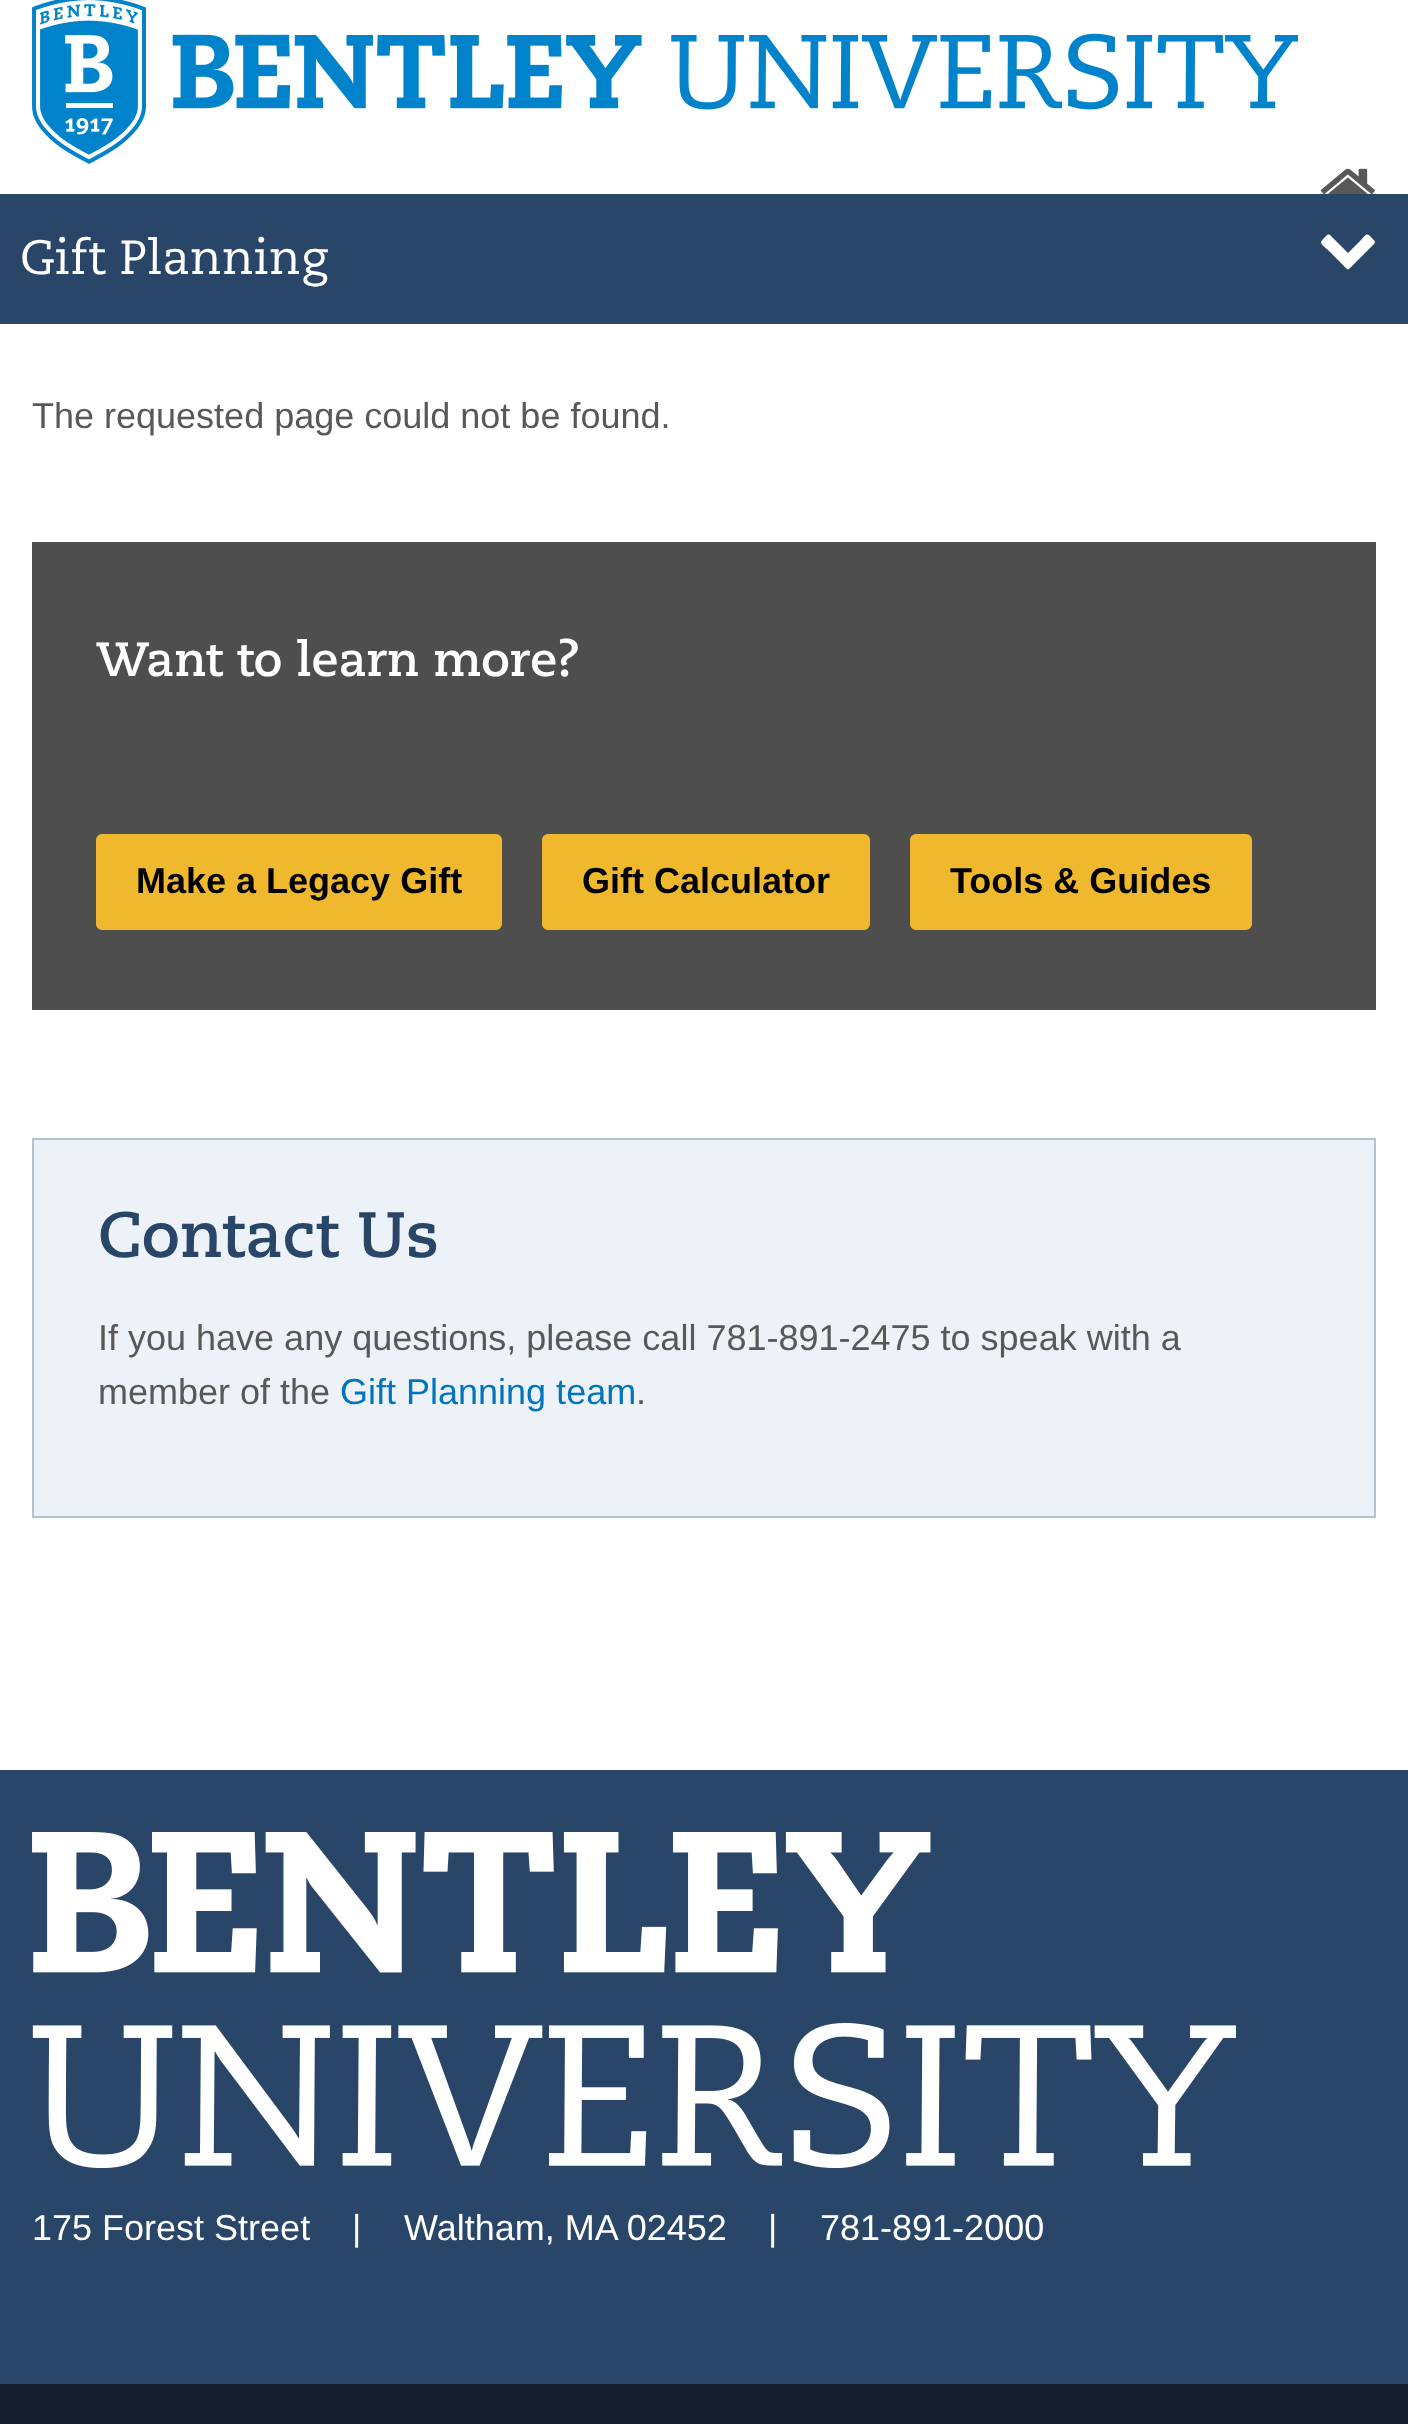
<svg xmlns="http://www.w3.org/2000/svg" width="1408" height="2424">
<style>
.a{font:48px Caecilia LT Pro;fill:#fff}
.b{font:36px Liberation Sans;fill:#585858}
.c{font:bold 48px Caecilia LT Pro;fill:#fff}
.d{font:bold 36px Liberation Sans;fill:#000}
.e{font:bold 64px Caecilia LT Pro;fill:#294567}
.f{font:36px Liberation Sans;fill:#0075be}
.g{font:36px Liberation Sans;fill:#fff}
</style>
<rect width="100%" height="100%" fill="#fff"/>
<image href="1.png" x="32" y="0" width="1266" height="164"/>
<image href="2.png" x="1320" y="168" width="55" height="26"/>
<path fill="#294567" d="M0 194h1408v130H0z"/>
<path fill="#fff" d="M1374 244c3-3-2-5-3-7c-5-5-5-2-11 4l-12 12l-18-18c-2-1-3 0-4 1c-8 8-6 6 4 16l12 12c7 7 5 7 12 0z"/>
<path fill="#4e4e4e" d="M32 542h1344v468H32z"/>
<rect fill="#f0b82d" stroke="#f0b82d" stroke-width="4" x="98" y="836" width="402" height="92" rx="4"/>
<rect fill="#f0b82d" stroke="#f0b82d" stroke-width="4" x="544" y="836" width="324" height="92" rx="4"/>
<rect fill="#f0b82d" stroke="#f0b82d" stroke-width="4" x="912" y="836" width="338" height="92" rx="4"/>
<path fill="#edf2f8" stroke="#b4c2cf" stroke-width="2" d="M33 1139h1342v378H33z"/>
<path fill="#294567" d="M0 1770h1408v614H0z"/>
<image href="3.png" x="32" y="1832" width="1204" height="336"/>
<path fill="#141e2d" d="M0 2384h1408v40H0z"/>
<text class="a" x="20" y="274">Gift Planning</text>
<text class="b" x="32" y="428">The requested page could not be found.</text>
<text class="c" x="96" y="676">Want to learn more?</text>
<text class="d" x="136" y="893">Make a Legacy Gift</text>
<text class="d" x="582" y="893">Gift Calculator</text>
<text class="d" x="950" y="893">Tools &amp; Guides</text>
<text class="e" x="98" y="1257">Contact Us</text>
<text class="b" x="98" y="1350">If you have any questions, please call 781-891-2475 to speak with a</text>
<text class="b" x="98" y="1404">member of the</text>
<text class="f" x="340" y="1404">Gift Planning team</text>
<text class="b" x="636" y="1404">.</text>
<text class="g" x="32" y="2240">175 Forest Street</text>
<text class="g" x="352" y="2240">|</text>
<text class="g" x="404" y="2240">Waltham, MA 02452</text>
<text class="g" x="768" y="2240">|</text>
<text class="g" x="820" y="2240">781-891-2000</text>
</svg>
